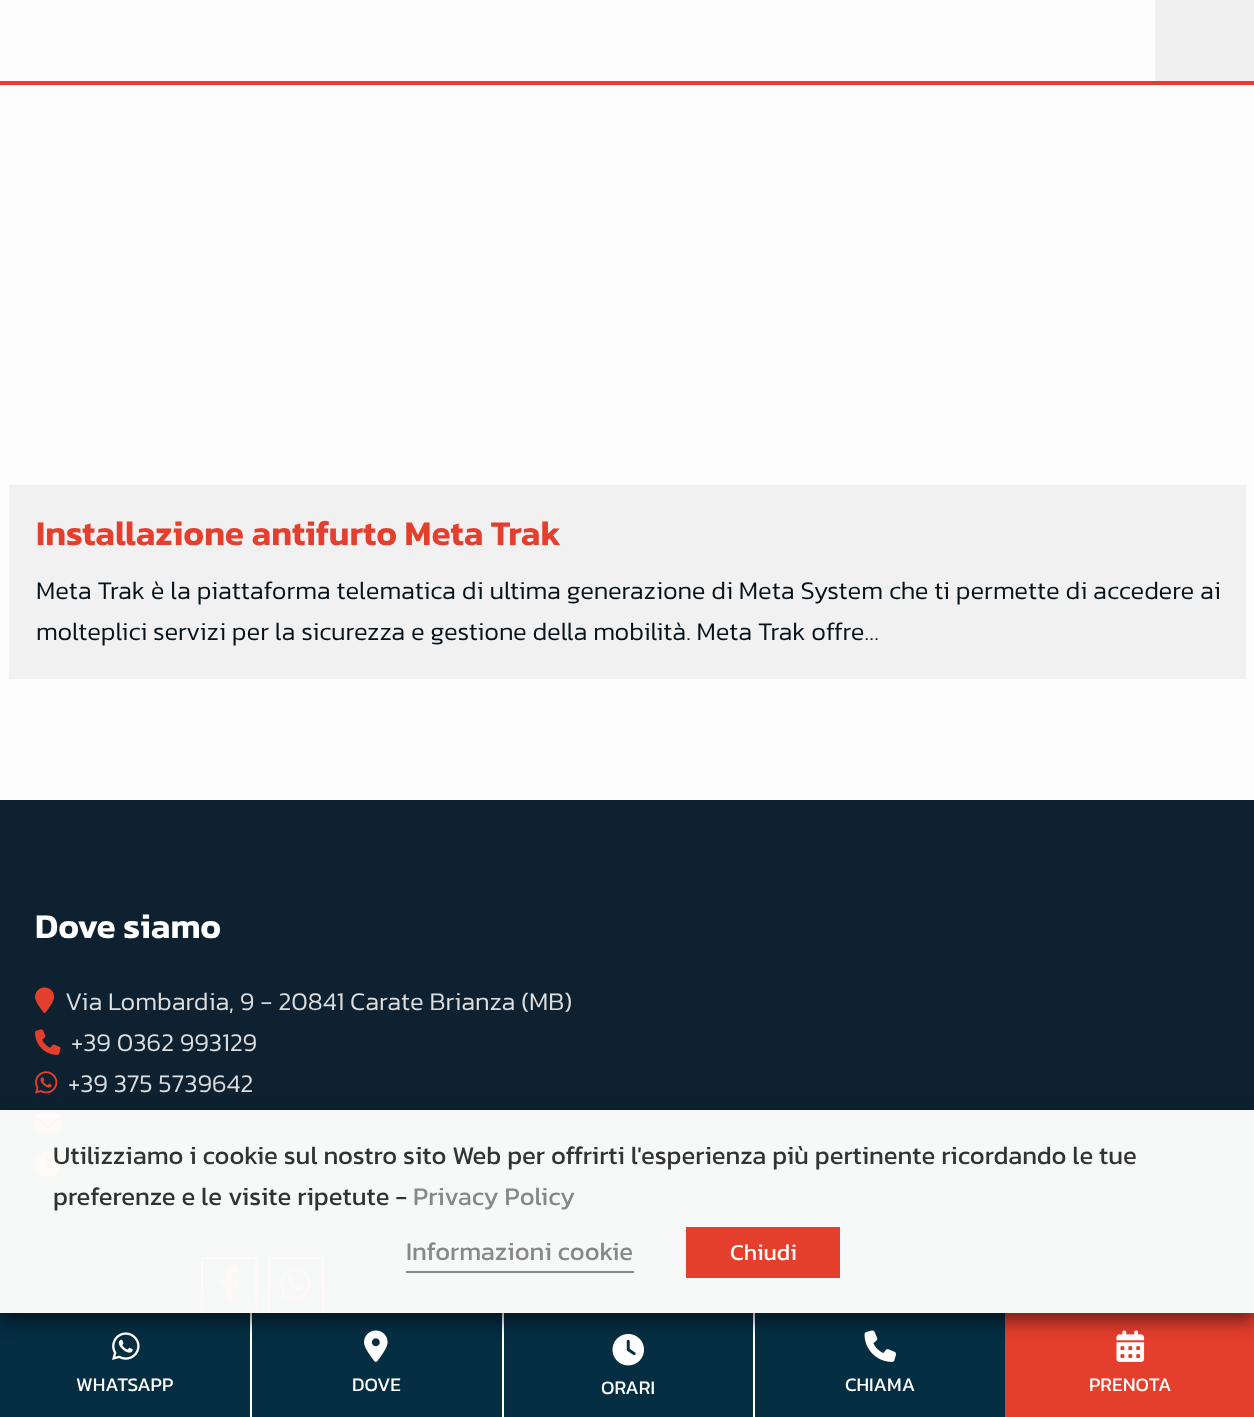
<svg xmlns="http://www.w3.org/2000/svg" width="1254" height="1417">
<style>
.a{font:600 35px Kanit;fill:#e43e2d}
.b{font:300 25.55px Kanit;fill:#071219}
.c{font:600 35px Kanit;fill:#fff}
.d{font:300 25.55px Kanit;fill:#ddd}
.e{font:19.25px Kanit;fill:#fff}
.f{font:25.65px Kanit;fill:#333}
.g{font:25.65px Kanit;fill:#898888}
.h{font:23px Kanit;fill:#fff}
</style>
<defs>
<clipPath id="clip1"><path d="M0 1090h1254v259h-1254zm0 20h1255v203h-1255z" clip-rule="evenodd"/></clipPath>
</defs>
<rect width="100%" height="100%" fill="#fdfdfe"/>
<path fill="#e43e2d" d="M0 81h1254v4H0z"/>
<path fill="#f0f0f1" d="M1155 0h99v81H1155z"/>
<path fill="#f1f1f2" d="M9 485h1237v194H9z"/>
<path fill="#0d2130" d="M0 800h1254v513H0z"/>
<image href="1.png" x="35" y="987" width="20" height="26"/>
<image href="2.png" x="35" y="1029" width="26" height="26"/>
<image href="3.png" x="35" y="1071" width="23" height="23"/>
<image href="4.png" x="35" y="1113" width="26" height="20"/>
<image href="5.png" x="35" y="1151" width="26" height="27"/>
<path fill="none" stroke="#e43e2d" stroke-width="2" d="M202 1258h54v54H202z"/>
<image href="6.png" x="220" y="1266" width="20" height="36"/>
<path fill="none" stroke="#e43e2d" stroke-width="2" d="M269 1258h54v54H269z"/>
<image href="7.png" x="280" y="1268" width="31" height="31"/>
<path fill="#503b3b4d" filter="blur(9px)" d="M0 1313h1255v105H0z"/>
<path fill="#052e42" d="M0 1313h250v104H0z"/>
<image href="8.png" x="112" y="1332" width="28" height="28"/>
<path fill="#052e42" d="M252 1313h250v104H252z"/>
<path fill="#fff" d="M250 1313h2v104H250z"/>
<image href="9.png" x="364" y="1330" width="24" height="32"/>
<path fill="#052e42" d="M504 1313h249v104H504z"/>
<path fill="#fff" d="M502 1313h2v104H502z"/>
<image href="10.png" x="612" y="1333" width="32" height="33"/>
<path fill="#052e42" d="M755 1313h250v104H755z"/>
<path fill="#fff" d="M753 1313h2v104H753z"/>
<image href="11.png" x="864" y="1330" width="32" height="32"/>
<path fill="#e43e2d" d="M1005 1313h249v104H1005z"/>
<image href="12.png" x="1116" y="1330" width="29" height="32"/>
<g clip-path="url(#clip1)">
<path fill="#00000080" filter="blur(9px)" d="M0 1118h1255v203H0z"/>
</g>
<path fill="#fffffff7" d="M0 1110h1254v203H0z"/>
<path fill="#898888" d="M406 1271h228v2H406z"/>
<path fill="#e43e2d" d="M686 1227h154v51H686z"/>
<text class="a" x="36" y="545">Installazione antifurto Meta Trak</text>
<text class="b" x="36" y="599">Meta Trak è la piattaforma telematica di ultima generazione di Meta System che ti permette di accedere ai</text>
<text class="b" x="36" y="640">molteplici servizi per la sicurezza e gestione della mobilità. Meta Trak offre…</text>
<text class="c" x="35" y="938">Dove siamo</text>
<text class="d" x="65" y="1010">Via Lombardia, 9 - 20841 Carate Brianza (MB)</text>
<text class="d" x="71" y="1051">+39 0362 993129</text>
<text class="d" x="68" y="1092">+39 375 5739642</text>
<text class="e" x="76" y="1391">WHATSAPP</text>
<text class="e" x="352" y="1391">DOVE</text>
<text class="e" x="601" y="1394">ORARI</text>
<text class="e" x="845" y="1391">CHIAMA</text>
<text class="e" x="1089" y="1391">PRENOTA</text>
<text class="f" x="53" y="1164">Utilizziamo i cookie sul nostro sito Web per offrirti l'esperienza più pertinente ricordando le tue</text>
<text class="f" x="53" y="1205">preferenze e le visite ripetute -</text>
<text class="g" x="413" y="1205">Privacy Policy</text>
<text class="g" x="406" y="1260">Informazioni cookie</text>
<text class="h" x="730" y="1260">Chiudi</text>
</svg>
